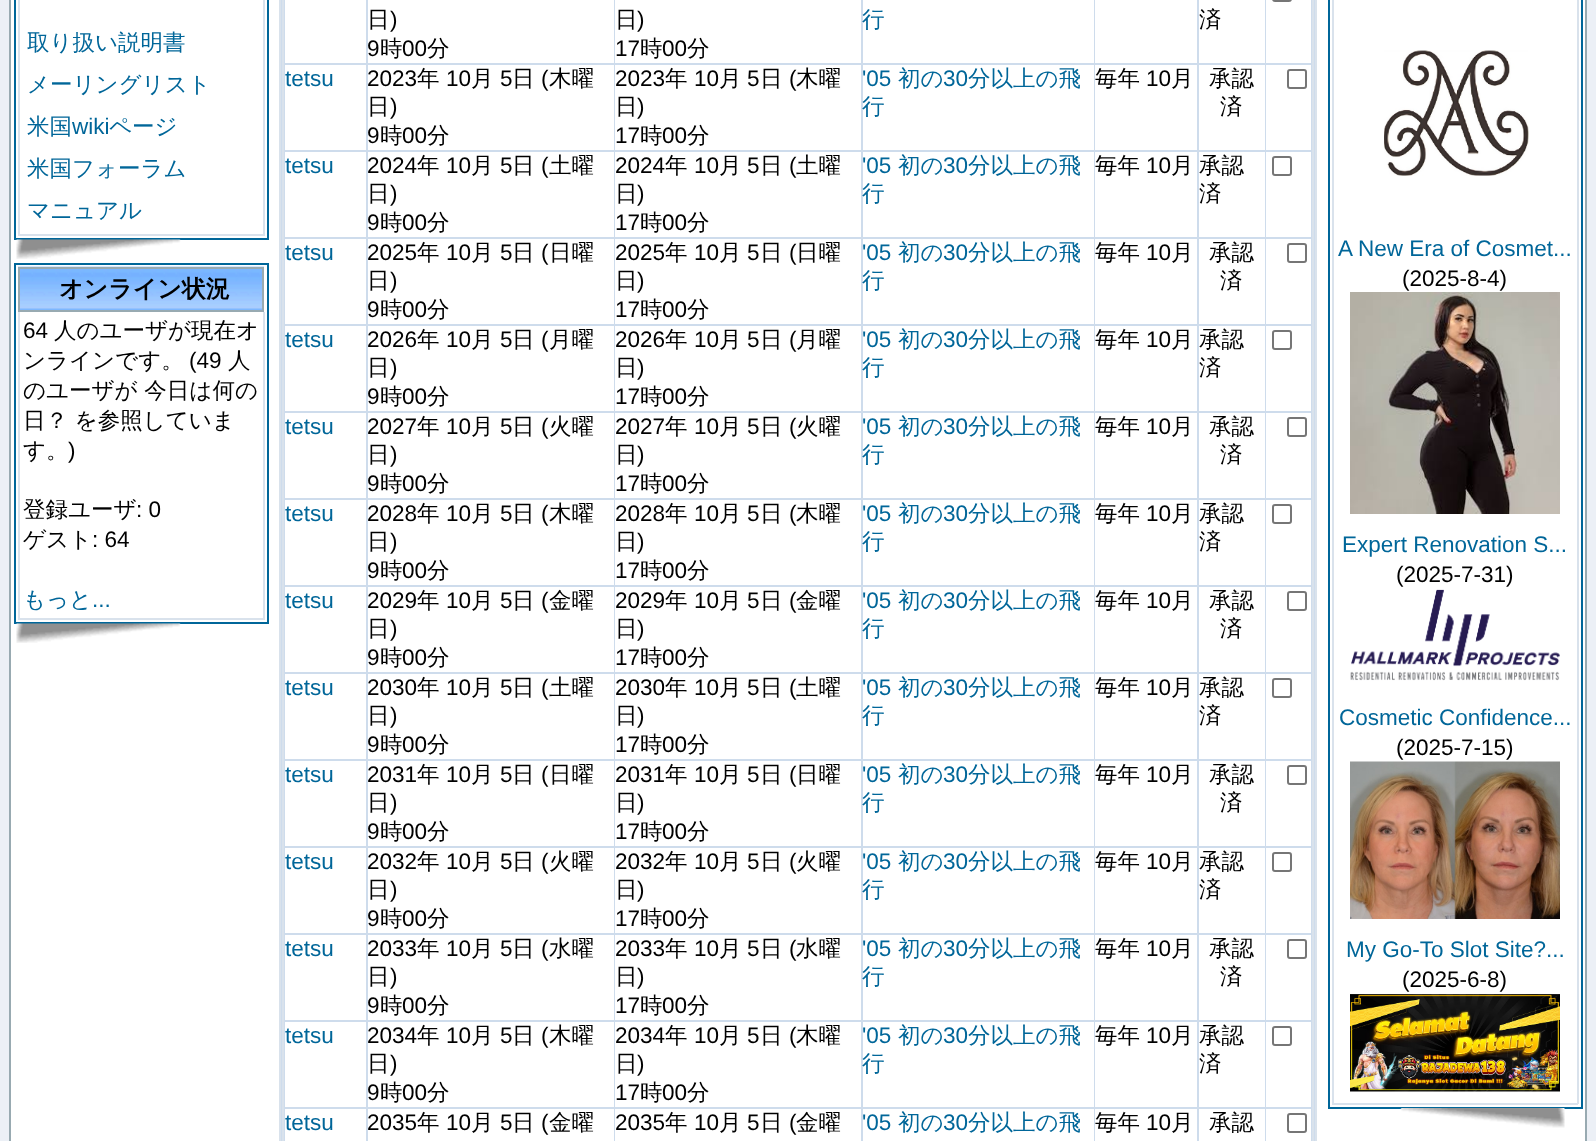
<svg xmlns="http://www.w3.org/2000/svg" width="1596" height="1141">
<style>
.a{font:500 22.5px WenQuanYi Zen Hei;fill:#069}
.b{font:22.5px Liberation Sans;fill:#069}
.c{font:bold 24px WenQuanYi Zen Hei;fill:#000}
.d{font:22.5px Liberation Sans;fill:#000}
.e{font:500 22.5px WenQuanYi Zen Hei;fill:#000}
</style>
<rect width="100%" height="100%" fill="#ecf0f6"/>
<path fill="#fff" stroke="#98aab1" stroke-width="2" d="M10 -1h1576v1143H10z"/>
<path fill="none" stroke="#069" stroke-width="2" d="M15 -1h253v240H15z"/>
<path fill="#d9e2ec" d="M263 0h2v236H263z"/>
<path fill="#d9e2ec" d="M18 234h246v2H18z"/>
<path fill="#d9e2ec" d="M18 0h2v236H18z"/>
<image href="1.png" x="16" y="239" width="165" height="20"/>
<path fill="none" stroke="#069" stroke-width="2" d="M15 264h253v359H15z"/>
<image href="2.png" x="18" y="266" width="246" height="44"/>
<path fill="none" stroke="#98aab1" stroke-width="2" d="M19 268h244v43H19z"/>
<path fill="#d9e2ec" d="M263 312h2v308H263z"/>
<path fill="#d9e2ec" d="M18 618h246v2H18z"/>
<path fill="#d9e2ec" d="M18 312h2v308H18z"/>
<image href="1.png" x="16" y="623" width="165" height="20"/>
<path fill="#cedcec" stroke="#d9e2ec" stroke-width="2" d="M280 -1h1036v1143H280z"/>
<path fill="none" stroke="#d9e2ec" stroke-width="2" d="M283 -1h1030v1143H283z"/>
<path fill="#fff" d="M285 0h81v63H285z"/>
<path fill="#fff" d="M368 0h246v63H368z"/>
<path fill="#fff" d="M615 0h246v63H615z"/>
<path fill="#fff" d="M863 0h231v63H863z"/>
<path fill="#fff" d="M1095 0h102v63H1095z"/>
<path fill="#fff" d="M1199 0h66v63H1199z"/>
<path fill="#fff" d="M1266 0h45v63H1266z"/>
<rect fill="none" stroke="#767676" stroke-width="2" x="1273" y="-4" width="18" height="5" rx="2"/>
<path fill="#fff" d="M285 65h81v85H285z"/>
<path fill="#fff" d="M368 65h246v85H368z"/>
<path fill="#fff" d="M615 65h246v85H615z"/>
<path fill="#fff" d="M863 65h231v85H863z"/>
<path fill="#fff" d="M1095 65h102v85H1095z"/>
<path fill="#fff" d="M1199 65h66v85H1199z"/>
<path fill="#fff" d="M1266 65h45v85H1266z"/>
<rect fill="none" stroke="#767676" stroke-width="2" x="1288" y="70" width="18" height="18" rx="2"/>
<path fill="#fff" d="M285 152h81v85H285z"/>
<path fill="#fff" d="M368 152h246v85H368z"/>
<path fill="#fff" d="M615 152h246v85H615z"/>
<path fill="#fff" d="M863 152h231v85H863z"/>
<path fill="#fff" d="M1095 152h102v85H1095z"/>
<path fill="#fff" d="M1199 152h66v85H1199z"/>
<path fill="#fff" d="M1266 152h45v85H1266z"/>
<rect fill="none" stroke="#767676" stroke-width="2" x="1273" y="157" width="18" height="18" rx="2"/>
<path fill="#fff" d="M285 239h81v85H285z"/>
<path fill="#fff" d="M368 239h246v85H368z"/>
<path fill="#fff" d="M615 239h246v85H615z"/>
<path fill="#fff" d="M863 239h231v85H863z"/>
<path fill="#fff" d="M1095 239h102v85H1095z"/>
<path fill="#fff" d="M1199 239h66v85H1199z"/>
<path fill="#fff" d="M1266 239h45v85H1266z"/>
<rect fill="none" stroke="#767676" stroke-width="2" x="1288" y="244" width="18" height="18" rx="2"/>
<path fill="#fff" d="M285 326h81v85H285z"/>
<path fill="#fff" d="M368 326h246v85H368z"/>
<path fill="#fff" d="M615 326h246v85H615z"/>
<path fill="#fff" d="M863 326h231v85H863z"/>
<path fill="#fff" d="M1095 326h102v85H1095z"/>
<path fill="#fff" d="M1199 326h66v85H1199z"/>
<path fill="#fff" d="M1266 326h45v85H1266z"/>
<rect fill="none" stroke="#767676" stroke-width="2" x="1273" y="331" width="18" height="18" rx="2"/>
<path fill="#fff" d="M285 413h81v85H285z"/>
<path fill="#fff" d="M368 413h246v85H368z"/>
<path fill="#fff" d="M615 413h246v85H615z"/>
<path fill="#fff" d="M863 413h231v85H863z"/>
<path fill="#fff" d="M1095 413h102v85H1095z"/>
<path fill="#fff" d="M1199 413h66v85H1199z"/>
<path fill="#fff" d="M1266 413h45v85H1266z"/>
<rect fill="none" stroke="#767676" stroke-width="2" x="1288" y="418" width="18" height="18" rx="2"/>
<path fill="#fff" d="M285 500h81v85H285z"/>
<path fill="#fff" d="M368 500h246v85H368z"/>
<path fill="#fff" d="M615 500h246v85H615z"/>
<path fill="#fff" d="M863 500h231v85H863z"/>
<path fill="#fff" d="M1095 500h102v85H1095z"/>
<path fill="#fff" d="M1199 500h66v85H1199z"/>
<path fill="#fff" d="M1266 500h45v85H1266z"/>
<rect fill="none" stroke="#767676" stroke-width="2" x="1273" y="505" width="18" height="18" rx="2"/>
<path fill="#fff" d="M285 587h81v85H285z"/>
<path fill="#fff" d="M368 587h246v85H368z"/>
<path fill="#fff" d="M615 587h246v85H615z"/>
<path fill="#fff" d="M863 587h231v85H863z"/>
<path fill="#fff" d="M1095 587h102v85H1095z"/>
<path fill="#fff" d="M1199 587h66v85H1199z"/>
<path fill="#fff" d="M1266 587h45v85H1266z"/>
<rect fill="none" stroke="#767676" stroke-width="2" x="1288" y="592" width="18" height="18" rx="2"/>
<path fill="#fff" d="M285 674h81v85H285z"/>
<path fill="#fff" d="M368 674h246v85H368z"/>
<path fill="#fff" d="M615 674h246v85H615z"/>
<path fill="#fff" d="M863 674h231v85H863z"/>
<path fill="#fff" d="M1095 674h102v85H1095z"/>
<path fill="#fff" d="M1199 674h66v85H1199z"/>
<path fill="#fff" d="M1266 674h45v85H1266z"/>
<rect fill="none" stroke="#767676" stroke-width="2" x="1273" y="679" width="18" height="18" rx="2"/>
<path fill="#fff" d="M285 761h81v85H285z"/>
<path fill="#fff" d="M368 761h246v85H368z"/>
<path fill="#fff" d="M615 761h246v85H615z"/>
<path fill="#fff" d="M863 761h231v85H863z"/>
<path fill="#fff" d="M1095 761h102v85H1095z"/>
<path fill="#fff" d="M1199 761h66v85H1199z"/>
<path fill="#fff" d="M1266 761h45v85H1266z"/>
<rect fill="none" stroke="#767676" stroke-width="2" x="1288" y="766" width="18" height="18" rx="2"/>
<path fill="#fff" d="M285 848h81v85H285z"/>
<path fill="#fff" d="M368 848h246v85H368z"/>
<path fill="#fff" d="M615 848h246v85H615z"/>
<path fill="#fff" d="M863 848h231v85H863z"/>
<path fill="#fff" d="M1095 848h102v85H1095z"/>
<path fill="#fff" d="M1199 848h66v85H1199z"/>
<path fill="#fff" d="M1266 848h45v85H1266z"/>
<rect fill="none" stroke="#767676" stroke-width="2" x="1273" y="853" width="18" height="18" rx="2"/>
<path fill="#fff" d="M285 935h81v85H285z"/>
<path fill="#fff" d="M368 935h246v85H368z"/>
<path fill="#fff" d="M615 935h246v85H615z"/>
<path fill="#fff" d="M863 935h231v85H863z"/>
<path fill="#fff" d="M1095 935h102v85H1095z"/>
<path fill="#fff" d="M1199 935h66v85H1199z"/>
<path fill="#fff" d="M1266 935h45v85H1266z"/>
<rect fill="none" stroke="#767676" stroke-width="2" x="1288" y="940" width="18" height="18" rx="2"/>
<path fill="#fff" d="M285 1022h81v85H285z"/>
<path fill="#fff" d="M368 1022h246v85H368z"/>
<path fill="#fff" d="M615 1022h246v85H615z"/>
<path fill="#fff" d="M863 1022h231v85H863z"/>
<path fill="#fff" d="M1095 1022h102v85H1095z"/>
<path fill="#fff" d="M1199 1022h66v85H1199z"/>
<path fill="#fff" d="M1266 1022h45v85H1266z"/>
<rect fill="none" stroke="#767676" stroke-width="2" x="1273" y="1027" width="18" height="18" rx="2"/>
<path fill="#fff" d="M285 1109h81v32H285z"/>
<path fill="#fff" d="M368 1109h246v32H368z"/>
<path fill="#fff" d="M615 1109h246v32H615z"/>
<path fill="#fff" d="M863 1109h231v32H863z"/>
<path fill="#fff" d="M1095 1109h102v32H1095z"/>
<path fill="#fff" d="M1199 1109h66v32H1199z"/>
<path fill="#fff" d="M1266 1109h45v32H1266z"/>
<rect fill="none" stroke="#767676" stroke-width="2" x="1288" y="1114" width="18" height="18" rx="2"/>
<path fill="none" stroke="#069" stroke-width="2" d="M1329 -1h253v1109H1329z"/>
<path fill="#d9e2ec" d="M1577 0h2v1104H1577z"/>
<path fill="#d9e2ec" d="M1332 1103h246v2H1332z"/>
<path fill="#d9e2ec" d="M1332 0h2v1104H1332z"/>
<image href="3.png" x="1384" y="50" width="145" height="126"/>
<image href="4.png" x="1350" y="292" width="210" height="222"/>
<image href="5.png" x="1350" y="589" width="210" height="92"/>
<image href="6.png" x="1350" y="761" width="210" height="158"/>
<image href="7.png" x="1350" y="994" width="210" height="98"/>
<image href="8.png" x="1400" y="1108" width="165" height="20"/>
<text class="a" x="27" y="50">取り扱い説明書</text>
<text class="a" x="27" y="92">メーリングリスト</text>
<text class="a" x="27" y="134">米国</text>
<text class="b" x="72" y="134">wiki</text>
<text class="a" x="109" y="134">ページ</text>
<text class="a" x="27" y="176">米国フォーラム</text>
<text class="a" x="27" y="218">マニュアル</text>
<text class="c" x="59" y="297">オンライン状況</text>
<text class="d" x="23" y="338">64</text>
<text class="e" x="54" y="338">人のユーザが現在オ</text>
<text class="e" x="23" y="368">ンラインです。</text>
<text class="d" x="189" y="368">(49</text>
<text class="e" x="228" y="368">人</text>
<text class="e" x="23" y="398">のユーザが 今日は何の</text>
<text class="e" x="23" y="428">日？ を参照していま</text>
<text class="e" x="23" y="458">す。</text>
<text class="d" x="68" y="458">)</text>
<text class="e" x="23" y="517">登録ユーザ</text>
<text class="d" x="136" y="517">: 0</text>
<text class="e" x="23" y="547">ゲスト</text>
<text class="d" x="92" y="547">: 64</text>
<text class="a" x="23" y="607">もっと</text>
<text class="b" x="92" y="607">...</text>
<text class="e" x="367" y="27">日</text>
<text class="d" x="390" y="27">)</text>
<text class="d" x="367" y="56">9</text>
<text class="e" x="380" y="56">時</text>
<text class="d" x="402" y="56">00</text>
<text class="e" x="427" y="56">分</text>
<text class="e" x="615" y="27">日</text>
<text class="d" x="637" y="27">)</text>
<text class="d" x="615" y="56">17</text>
<text class="e" x="640" y="56">時</text>
<text class="d" x="662" y="56">00</text>
<text class="e" x="687" y="56">分</text>
<text class="a" x="862" y="27">行</text>
<text class="e" x="1199" y="27">済</text>
<text class="b" x="285" y="86">tetsu</text>
<text class="d" x="367" y="86">2023</text>
<text class="e" x="417" y="86">年</text>
<text class="d" x="446" y="86">10</text>
<text class="e" x="471" y="86">月</text>
<text class="d" x="500" y="86">5</text>
<text class="e" x="512" y="86">日</text>
<text class="d" x="541" y="86">(</text>
<text class="e" x="549" y="86">木曜</text>
<text class="e" x="367" y="114">日</text>
<text class="d" x="390" y="114">)</text>
<text class="d" x="367" y="143">9</text>
<text class="e" x="380" y="143">時</text>
<text class="d" x="402" y="143">00</text>
<text class="e" x="427" y="143">分</text>
<text class="d" x="615" y="86">2023</text>
<text class="e" x="665" y="86">年</text>
<text class="d" x="694" y="86">10</text>
<text class="e" x="719" y="86">月</text>
<text class="d" x="747" y="86">5</text>
<text class="e" x="760" y="86">日</text>
<text class="d" x="789" y="86">(</text>
<text class="e" x="796" y="86">木曜</text>
<text class="e" x="615" y="114">日</text>
<text class="d" x="637" y="114">)</text>
<text class="d" x="615" y="143">17</text>
<text class="e" x="640" y="143">時</text>
<text class="d" x="662" y="143">00</text>
<text class="e" x="687" y="143">分</text>
<text class="b" x="862" y="86">'05</text>
<text class="a" x="898" y="86">初の</text>
<text class="b" x="943" y="86">30</text>
<text class="a" x="968" y="86">分以上の飛</text>
<text class="a" x="862" y="114">行</text>
<text class="e" x="1095" y="86">毎年</text>
<text class="d" x="1146" y="86">10</text>
<text class="e" x="1171" y="86">月</text>
<text class="e" x="1209" y="86">承認</text>
<text class="e" x="1220" y="114">済</text>
<text class="b" x="285" y="173">tetsu</text>
<text class="d" x="367" y="173">2024</text>
<text class="e" x="417" y="173">年</text>
<text class="d" x="446" y="173">10</text>
<text class="e" x="471" y="173">月</text>
<text class="d" x="500" y="173">5</text>
<text class="e" x="512" y="173">日</text>
<text class="d" x="541" y="173">(</text>
<text class="e" x="549" y="173">土曜</text>
<text class="e" x="367" y="201">日</text>
<text class="d" x="390" y="201">)</text>
<text class="d" x="367" y="230">9</text>
<text class="e" x="380" y="230">時</text>
<text class="d" x="402" y="230">00</text>
<text class="e" x="427" y="230">分</text>
<text class="d" x="615" y="173">2024</text>
<text class="e" x="665" y="173">年</text>
<text class="d" x="694" y="173">10</text>
<text class="e" x="719" y="173">月</text>
<text class="d" x="747" y="173">5</text>
<text class="e" x="760" y="173">日</text>
<text class="d" x="789" y="173">(</text>
<text class="e" x="796" y="173">土曜</text>
<text class="e" x="615" y="201">日</text>
<text class="d" x="637" y="201">)</text>
<text class="d" x="615" y="230">17</text>
<text class="e" x="640" y="230">時</text>
<text class="d" x="662" y="230">00</text>
<text class="e" x="687" y="230">分</text>
<text class="b" x="862" y="173">'05</text>
<text class="a" x="898" y="173">初の</text>
<text class="b" x="943" y="173">30</text>
<text class="a" x="968" y="173">分以上の飛</text>
<text class="a" x="862" y="201">行</text>
<text class="e" x="1095" y="173">毎年</text>
<text class="d" x="1146" y="173">10</text>
<text class="e" x="1171" y="173">月</text>
<text class="e" x="1199" y="173">承認</text>
<text class="e" x="1199" y="201">済</text>
<text class="b" x="285" y="260">tetsu</text>
<text class="d" x="367" y="260">2025</text>
<text class="e" x="417" y="260">年</text>
<text class="d" x="446" y="260">10</text>
<text class="e" x="471" y="260">月</text>
<text class="d" x="500" y="260">5</text>
<text class="e" x="512" y="260">日</text>
<text class="d" x="541" y="260">(</text>
<text class="e" x="549" y="260">日曜</text>
<text class="e" x="367" y="288">日</text>
<text class="d" x="390" y="288">)</text>
<text class="d" x="367" y="317">9</text>
<text class="e" x="380" y="317">時</text>
<text class="d" x="402" y="317">00</text>
<text class="e" x="427" y="317">分</text>
<text class="d" x="615" y="260">2025</text>
<text class="e" x="665" y="260">年</text>
<text class="d" x="694" y="260">10</text>
<text class="e" x="719" y="260">月</text>
<text class="d" x="747" y="260">5</text>
<text class="e" x="760" y="260">日</text>
<text class="d" x="789" y="260">(</text>
<text class="e" x="796" y="260">日曜</text>
<text class="e" x="615" y="288">日</text>
<text class="d" x="637" y="288">)</text>
<text class="d" x="615" y="317">17</text>
<text class="e" x="640" y="317">時</text>
<text class="d" x="662" y="317">00</text>
<text class="e" x="687" y="317">分</text>
<text class="b" x="862" y="260">'05</text>
<text class="a" x="898" y="260">初の</text>
<text class="b" x="943" y="260">30</text>
<text class="a" x="968" y="260">分以上の飛</text>
<text class="a" x="862" y="288">行</text>
<text class="e" x="1095" y="260">毎年</text>
<text class="d" x="1146" y="260">10</text>
<text class="e" x="1171" y="260">月</text>
<text class="e" x="1209" y="260">承認</text>
<text class="e" x="1220" y="288">済</text>
<text class="b" x="285" y="347">tetsu</text>
<text class="d" x="367" y="347">2026</text>
<text class="e" x="417" y="347">年</text>
<text class="d" x="446" y="347">10</text>
<text class="e" x="471" y="347">月</text>
<text class="d" x="500" y="347">5</text>
<text class="e" x="512" y="347">日</text>
<text class="d" x="541" y="347">(</text>
<text class="e" x="549" y="347">月曜</text>
<text class="e" x="367" y="375">日</text>
<text class="d" x="390" y="375">)</text>
<text class="d" x="367" y="404">9</text>
<text class="e" x="380" y="404">時</text>
<text class="d" x="402" y="404">00</text>
<text class="e" x="427" y="404">分</text>
<text class="d" x="615" y="347">2026</text>
<text class="e" x="665" y="347">年</text>
<text class="d" x="694" y="347">10</text>
<text class="e" x="719" y="347">月</text>
<text class="d" x="747" y="347">5</text>
<text class="e" x="760" y="347">日</text>
<text class="d" x="789" y="347">(</text>
<text class="e" x="796" y="347">月曜</text>
<text class="e" x="615" y="375">日</text>
<text class="d" x="637" y="375">)</text>
<text class="d" x="615" y="404">17</text>
<text class="e" x="640" y="404">時</text>
<text class="d" x="662" y="404">00</text>
<text class="e" x="687" y="404">分</text>
<text class="b" x="862" y="347">'05</text>
<text class="a" x="898" y="347">初の</text>
<text class="b" x="943" y="347">30</text>
<text class="a" x="968" y="347">分以上の飛</text>
<text class="a" x="862" y="375">行</text>
<text class="e" x="1095" y="347">毎年</text>
<text class="d" x="1146" y="347">10</text>
<text class="e" x="1171" y="347">月</text>
<text class="e" x="1199" y="347">承認</text>
<text class="e" x="1199" y="375">済</text>
<text class="b" x="285" y="434">tetsu</text>
<text class="d" x="367" y="434">2027</text>
<text class="e" x="417" y="434">年</text>
<text class="d" x="446" y="434">10</text>
<text class="e" x="471" y="434">月</text>
<text class="d" x="500" y="434">5</text>
<text class="e" x="512" y="434">日</text>
<text class="d" x="541" y="434">(</text>
<text class="e" x="549" y="434">火曜</text>
<text class="e" x="367" y="462">日</text>
<text class="d" x="390" y="462">)</text>
<text class="d" x="367" y="491">9</text>
<text class="e" x="380" y="491">時</text>
<text class="d" x="402" y="491">00</text>
<text class="e" x="427" y="491">分</text>
<text class="d" x="615" y="434">2027</text>
<text class="e" x="665" y="434">年</text>
<text class="d" x="694" y="434">10</text>
<text class="e" x="719" y="434">月</text>
<text class="d" x="747" y="434">5</text>
<text class="e" x="760" y="434">日</text>
<text class="d" x="789" y="434">(</text>
<text class="e" x="796" y="434">火曜</text>
<text class="e" x="615" y="462">日</text>
<text class="d" x="637" y="462">)</text>
<text class="d" x="615" y="491">17</text>
<text class="e" x="640" y="491">時</text>
<text class="d" x="662" y="491">00</text>
<text class="e" x="687" y="491">分</text>
<text class="b" x="862" y="434">'05</text>
<text class="a" x="898" y="434">初の</text>
<text class="b" x="943" y="434">30</text>
<text class="a" x="968" y="434">分以上の飛</text>
<text class="a" x="862" y="462">行</text>
<text class="e" x="1095" y="434">毎年</text>
<text class="d" x="1146" y="434">10</text>
<text class="e" x="1171" y="434">月</text>
<text class="e" x="1209" y="434">承認</text>
<text class="e" x="1220" y="462">済</text>
<text class="b" x="285" y="521">tetsu</text>
<text class="d" x="367" y="521">2028</text>
<text class="e" x="417" y="521">年</text>
<text class="d" x="446" y="521">10</text>
<text class="e" x="471" y="521">月</text>
<text class="d" x="500" y="521">5</text>
<text class="e" x="512" y="521">日</text>
<text class="d" x="541" y="521">(</text>
<text class="e" x="549" y="521">木曜</text>
<text class="e" x="367" y="549">日</text>
<text class="d" x="390" y="549">)</text>
<text class="d" x="367" y="578">9</text>
<text class="e" x="380" y="578">時</text>
<text class="d" x="402" y="578">00</text>
<text class="e" x="427" y="578">分</text>
<text class="d" x="615" y="521">2028</text>
<text class="e" x="665" y="521">年</text>
<text class="d" x="694" y="521">10</text>
<text class="e" x="719" y="521">月</text>
<text class="d" x="747" y="521">5</text>
<text class="e" x="760" y="521">日</text>
<text class="d" x="789" y="521">(</text>
<text class="e" x="796" y="521">木曜</text>
<text class="e" x="615" y="549">日</text>
<text class="d" x="637" y="549">)</text>
<text class="d" x="615" y="578">17</text>
<text class="e" x="640" y="578">時</text>
<text class="d" x="662" y="578">00</text>
<text class="e" x="687" y="578">分</text>
<text class="b" x="862" y="521">'05</text>
<text class="a" x="898" y="521">初の</text>
<text class="b" x="943" y="521">30</text>
<text class="a" x="968" y="521">分以上の飛</text>
<text class="a" x="862" y="549">行</text>
<text class="e" x="1095" y="521">毎年</text>
<text class="d" x="1146" y="521">10</text>
<text class="e" x="1171" y="521">月</text>
<text class="e" x="1199" y="521">承認</text>
<text class="e" x="1199" y="549">済</text>
<text class="b" x="285" y="608">tetsu</text>
<text class="d" x="367" y="608">2029</text>
<text class="e" x="417" y="608">年</text>
<text class="d" x="446" y="608">10</text>
<text class="e" x="471" y="608">月</text>
<text class="d" x="500" y="608">5</text>
<text class="e" x="512" y="608">日</text>
<text class="d" x="541" y="608">(</text>
<text class="e" x="549" y="608">金曜</text>
<text class="e" x="367" y="636">日</text>
<text class="d" x="390" y="636">)</text>
<text class="d" x="367" y="665">9</text>
<text class="e" x="380" y="665">時</text>
<text class="d" x="402" y="665">00</text>
<text class="e" x="427" y="665">分</text>
<text class="d" x="615" y="608">2029</text>
<text class="e" x="665" y="608">年</text>
<text class="d" x="694" y="608">10</text>
<text class="e" x="719" y="608">月</text>
<text class="d" x="747" y="608">5</text>
<text class="e" x="760" y="608">日</text>
<text class="d" x="789" y="608">(</text>
<text class="e" x="796" y="608">金曜</text>
<text class="e" x="615" y="636">日</text>
<text class="d" x="637" y="636">)</text>
<text class="d" x="615" y="665">17</text>
<text class="e" x="640" y="665">時</text>
<text class="d" x="662" y="665">00</text>
<text class="e" x="687" y="665">分</text>
<text class="b" x="862" y="608">'05</text>
<text class="a" x="898" y="608">初の</text>
<text class="b" x="943" y="608">30</text>
<text class="a" x="968" y="608">分以上の飛</text>
<text class="a" x="862" y="636">行</text>
<text class="e" x="1095" y="608">毎年</text>
<text class="d" x="1146" y="608">10</text>
<text class="e" x="1171" y="608">月</text>
<text class="e" x="1209" y="608">承認</text>
<text class="e" x="1220" y="636">済</text>
<text class="b" x="285" y="695">tetsu</text>
<text class="d" x="367" y="695">2030</text>
<text class="e" x="417" y="695">年</text>
<text class="d" x="446" y="695">10</text>
<text class="e" x="471" y="695">月</text>
<text class="d" x="500" y="695">5</text>
<text class="e" x="512" y="695">日</text>
<text class="d" x="541" y="695">(</text>
<text class="e" x="549" y="695">土曜</text>
<text class="e" x="367" y="723">日</text>
<text class="d" x="390" y="723">)</text>
<text class="d" x="367" y="752">9</text>
<text class="e" x="380" y="752">時</text>
<text class="d" x="402" y="752">00</text>
<text class="e" x="427" y="752">分</text>
<text class="d" x="615" y="695">2030</text>
<text class="e" x="665" y="695">年</text>
<text class="d" x="694" y="695">10</text>
<text class="e" x="719" y="695">月</text>
<text class="d" x="747" y="695">5</text>
<text class="e" x="760" y="695">日</text>
<text class="d" x="789" y="695">(</text>
<text class="e" x="796" y="695">土曜</text>
<text class="e" x="615" y="723">日</text>
<text class="d" x="637" y="723">)</text>
<text class="d" x="615" y="752">17</text>
<text class="e" x="640" y="752">時</text>
<text class="d" x="662" y="752">00</text>
<text class="e" x="687" y="752">分</text>
<text class="b" x="862" y="695">'05</text>
<text class="a" x="898" y="695">初の</text>
<text class="b" x="943" y="695">30</text>
<text class="a" x="968" y="695">分以上の飛</text>
<text class="a" x="862" y="723">行</text>
<text class="e" x="1095" y="695">毎年</text>
<text class="d" x="1146" y="695">10</text>
<text class="e" x="1171" y="695">月</text>
<text class="e" x="1199" y="695">承認</text>
<text class="e" x="1199" y="723">済</text>
<text class="b" x="285" y="782">tetsu</text>
<text class="d" x="367" y="782">2031</text>
<text class="e" x="417" y="782">年</text>
<text class="d" x="446" y="782">10</text>
<text class="e" x="471" y="782">月</text>
<text class="d" x="500" y="782">5</text>
<text class="e" x="512" y="782">日</text>
<text class="d" x="541" y="782">(</text>
<text class="e" x="549" y="782">日曜</text>
<text class="e" x="367" y="810">日</text>
<text class="d" x="390" y="810">)</text>
<text class="d" x="367" y="839">9</text>
<text class="e" x="380" y="839">時</text>
<text class="d" x="402" y="839">00</text>
<text class="e" x="427" y="839">分</text>
<text class="d" x="615" y="782">2031</text>
<text class="e" x="665" y="782">年</text>
<text class="d" x="694" y="782">10</text>
<text class="e" x="719" y="782">月</text>
<text class="d" x="747" y="782">5</text>
<text class="e" x="760" y="782">日</text>
<text class="d" x="789" y="782">(</text>
<text class="e" x="796" y="782">日曜</text>
<text class="e" x="615" y="810">日</text>
<text class="d" x="637" y="810">)</text>
<text class="d" x="615" y="839">17</text>
<text class="e" x="640" y="839">時</text>
<text class="d" x="662" y="839">00</text>
<text class="e" x="687" y="839">分</text>
<text class="b" x="862" y="782">'05</text>
<text class="a" x="898" y="782">初の</text>
<text class="b" x="943" y="782">30</text>
<text class="a" x="968" y="782">分以上の飛</text>
<text class="a" x="862" y="810">行</text>
<text class="e" x="1095" y="782">毎年</text>
<text class="d" x="1146" y="782">10</text>
<text class="e" x="1171" y="782">月</text>
<text class="e" x="1209" y="782">承認</text>
<text class="e" x="1220" y="810">済</text>
<text class="b" x="285" y="869">tetsu</text>
<text class="d" x="367" y="869">2032</text>
<text class="e" x="417" y="869">年</text>
<text class="d" x="446" y="869">10</text>
<text class="e" x="471" y="869">月</text>
<text class="d" x="500" y="869">5</text>
<text class="e" x="512" y="869">日</text>
<text class="d" x="541" y="869">(</text>
<text class="e" x="549" y="869">火曜</text>
<text class="e" x="367" y="897">日</text>
<text class="d" x="390" y="897">)</text>
<text class="d" x="367" y="926">9</text>
<text class="e" x="380" y="926">時</text>
<text class="d" x="402" y="926">00</text>
<text class="e" x="427" y="926">分</text>
<text class="d" x="615" y="869">2032</text>
<text class="e" x="665" y="869">年</text>
<text class="d" x="694" y="869">10</text>
<text class="e" x="719" y="869">月</text>
<text class="d" x="747" y="869">5</text>
<text class="e" x="760" y="869">日</text>
<text class="d" x="789" y="869">(</text>
<text class="e" x="796" y="869">火曜</text>
<text class="e" x="615" y="897">日</text>
<text class="d" x="637" y="897">)</text>
<text class="d" x="615" y="926">17</text>
<text class="e" x="640" y="926">時</text>
<text class="d" x="662" y="926">00</text>
<text class="e" x="687" y="926">分</text>
<text class="b" x="862" y="869">'05</text>
<text class="a" x="898" y="869">初の</text>
<text class="b" x="943" y="869">30</text>
<text class="a" x="968" y="869">分以上の飛</text>
<text class="a" x="862" y="897">行</text>
<text class="e" x="1095" y="869">毎年</text>
<text class="d" x="1146" y="869">10</text>
<text class="e" x="1171" y="869">月</text>
<text class="e" x="1199" y="869">承認</text>
<text class="e" x="1199" y="897">済</text>
<text class="b" x="285" y="956">tetsu</text>
<text class="d" x="367" y="956">2033</text>
<text class="e" x="417" y="956">年</text>
<text class="d" x="446" y="956">10</text>
<text class="e" x="471" y="956">月</text>
<text class="d" x="500" y="956">5</text>
<text class="e" x="512" y="956">日</text>
<text class="d" x="541" y="956">(</text>
<text class="e" x="549" y="956">水曜</text>
<text class="e" x="367" y="984">日</text>
<text class="d" x="390" y="984">)</text>
<text class="d" x="367" y="1013">9</text>
<text class="e" x="380" y="1013">時</text>
<text class="d" x="402" y="1013">00</text>
<text class="e" x="427" y="1013">分</text>
<text class="d" x="615" y="956">2033</text>
<text class="e" x="665" y="956">年</text>
<text class="d" x="694" y="956">10</text>
<text class="e" x="719" y="956">月</text>
<text class="d" x="747" y="956">5</text>
<text class="e" x="760" y="956">日</text>
<text class="d" x="789" y="956">(</text>
<text class="e" x="796" y="956">水曜</text>
<text class="e" x="615" y="984">日</text>
<text class="d" x="637" y="984">)</text>
<text class="d" x="615" y="1013">17</text>
<text class="e" x="640" y="1013">時</text>
<text class="d" x="662" y="1013">00</text>
<text class="e" x="687" y="1013">分</text>
<text class="b" x="862" y="956">'05</text>
<text class="a" x="898" y="956">初の</text>
<text class="b" x="943" y="956">30</text>
<text class="a" x="968" y="956">分以上の飛</text>
<text class="a" x="862" y="984">行</text>
<text class="e" x="1095" y="956">毎年</text>
<text class="d" x="1146" y="956">10</text>
<text class="e" x="1171" y="956">月</text>
<text class="e" x="1209" y="956">承認</text>
<text class="e" x="1220" y="984">済</text>
<text class="b" x="285" y="1043">tetsu</text>
<text class="d" x="367" y="1043">2034</text>
<text class="e" x="417" y="1043">年</text>
<text class="d" x="446" y="1043">10</text>
<text class="e" x="471" y="1043">月</text>
<text class="d" x="500" y="1043">5</text>
<text class="e" x="512" y="1043">日</text>
<text class="d" x="541" y="1043">(</text>
<text class="e" x="549" y="1043">木曜</text>
<text class="e" x="367" y="1071">日</text>
<text class="d" x="390" y="1071">)</text>
<text class="d" x="367" y="1100">9</text>
<text class="e" x="380" y="1100">時</text>
<text class="d" x="402" y="1100">00</text>
<text class="e" x="427" y="1100">分</text>
<text class="d" x="615" y="1043">2034</text>
<text class="e" x="665" y="1043">年</text>
<text class="d" x="694" y="1043">10</text>
<text class="e" x="719" y="1043">月</text>
<text class="d" x="747" y="1043">5</text>
<text class="e" x="760" y="1043">日</text>
<text class="d" x="789" y="1043">(</text>
<text class="e" x="796" y="1043">木曜</text>
<text class="e" x="615" y="1071">日</text>
<text class="d" x="637" y="1071">)</text>
<text class="d" x="615" y="1100">17</text>
<text class="e" x="640" y="1100">時</text>
<text class="d" x="662" y="1100">00</text>
<text class="e" x="687" y="1100">分</text>
<text class="b" x="862" y="1043">'05</text>
<text class="a" x="898" y="1043">初の</text>
<text class="b" x="943" y="1043">30</text>
<text class="a" x="968" y="1043">分以上の飛</text>
<text class="a" x="862" y="1071">行</text>
<text class="e" x="1095" y="1043">毎年</text>
<text class="d" x="1146" y="1043">10</text>
<text class="e" x="1171" y="1043">月</text>
<text class="e" x="1199" y="1043">承認</text>
<text class="e" x="1199" y="1071">済</text>
<text class="b" x="285" y="1130">tetsu</text>
<text class="d" x="367" y="1130">2035</text>
<text class="e" x="417" y="1130">年</text>
<text class="d" x="446" y="1130">10</text>
<text class="e" x="471" y="1130">月</text>
<text class="d" x="500" y="1130">5</text>
<text class="e" x="512" y="1130">日</text>
<text class="d" x="541" y="1130">(</text>
<text class="e" x="549" y="1130">金曜</text>
<text class="d" x="615" y="1130">2035</text>
<text class="e" x="665" y="1130">年</text>
<text class="d" x="694" y="1130">10</text>
<text class="e" x="719" y="1130">月</text>
<text class="d" x="747" y="1130">5</text>
<text class="e" x="760" y="1130">日</text>
<text class="d" x="789" y="1130">(</text>
<text class="e" x="796" y="1130">金曜</text>
<text class="b" x="862" y="1130">'05</text>
<text class="a" x="898" y="1130">初の</text>
<text class="b" x="943" y="1130">30</text>
<text class="a" x="968" y="1130">分以上の飛</text>
<text class="e" x="1095" y="1130">毎年</text>
<text class="d" x="1146" y="1130">10</text>
<text class="e" x="1171" y="1130">月</text>
<text class="e" x="1209" y="1130">承認</text>
<text class="b" x="1338" y="256">A New Era of Cosmet...</text>
<text class="d" x="1402" y="286">(2025-8-4)</text>
<text class="b" x="1342" y="552">Expert Renovation S...</text>
<text class="d" x="1396" y="582">(2025-7-31)</text>
<text class="b" x="1339" y="725">Cosmetic Confidence...</text>
<text class="d" x="1396" y="755">(2025-7-15)</text>
<text class="b" x="1346" y="957">My Go-To Slot Site?...</text>
<text class="d" x="1402" y="987">(2025-6-8)</text>
</svg>
